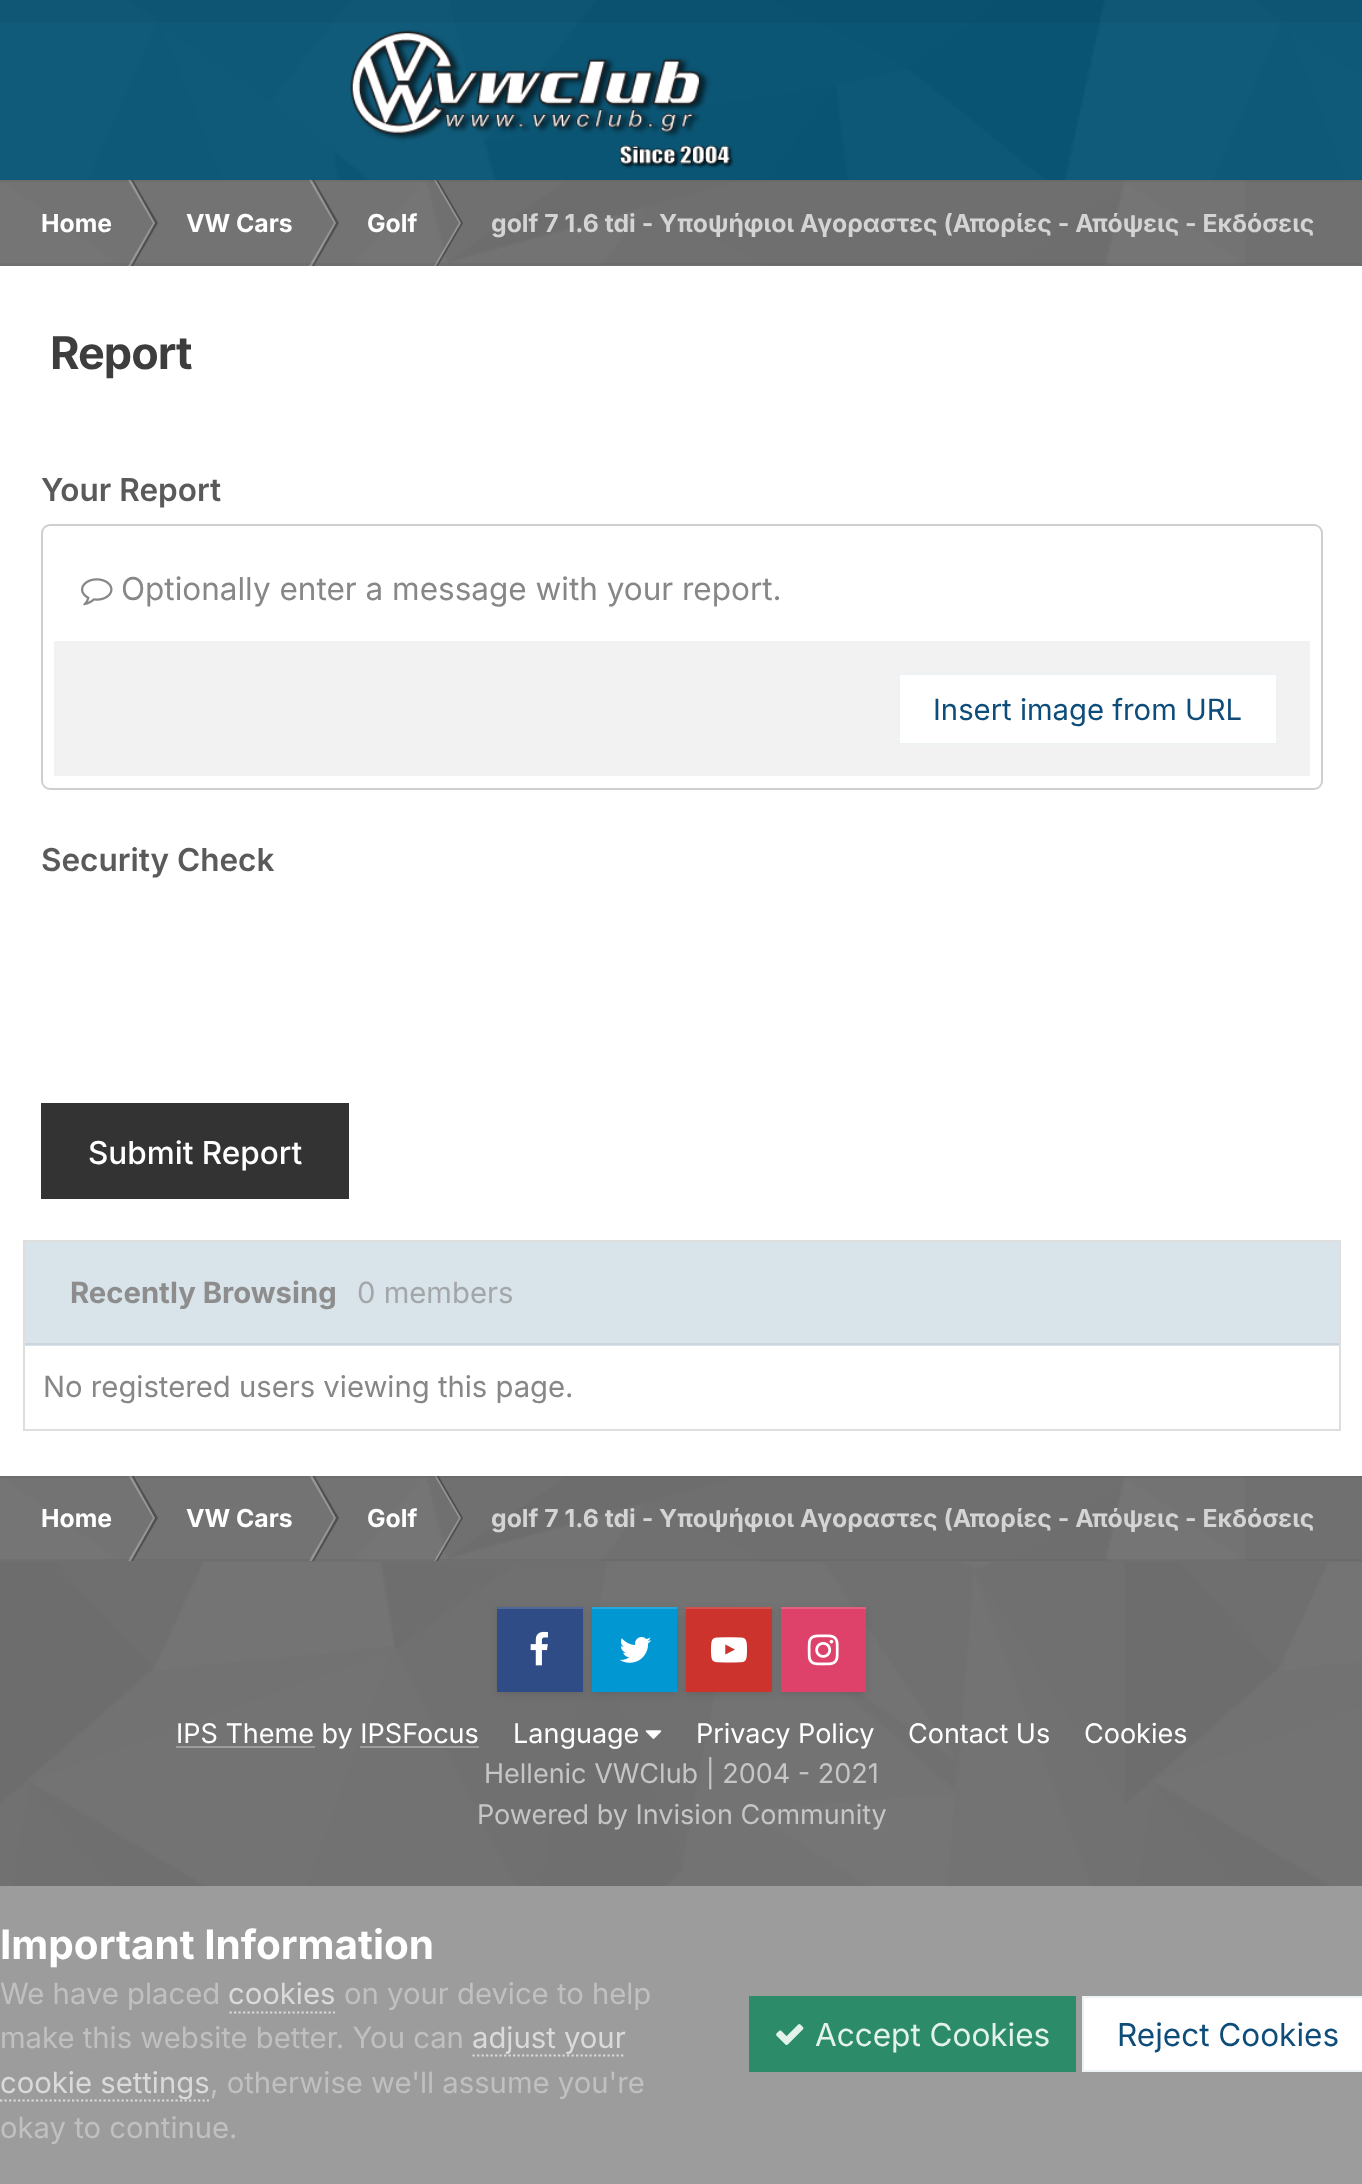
<svg xmlns="http://www.w3.org/2000/svg" width="1362" height="2184">
<style>
.a{font:bold 24.75px Inter;fill:#fff}
.b{font:bold 24.75px Inter;fill:#d4d4d4}
.c{font:bold 45px Inter;letter-spacing:-1px;fill:#3d3d3d}
.d{font:600 31.5px Inter;fill:#5a5a5a}
.e{font:31.5px Inter;fill:#878787}
.f{font:29.25px Inter;fill:#0e4c79}
.g{font:500 31.5px Inter;fill:#fff}
.h{font:bold 29.25px Inter;fill:#8d8d8d}
.i{font:29.25px Inter;fill:#a4a7a9}
.j{font:29.25px Inter;fill:#878787}
.k{font:27px Inter;fill:#fff}
.l{font:27px Inter;fill:#c6c6c6}
.m{font:bold 40.5px Inter;fill:#fff}
.n{font:29.25px Inter;fill:#c0c0c0}
.o{font:29.25px Inter;fill:#dadada}
.p{font:31.5px Inter;fill:#e3f3ec}
.q{font:31.5px Inter;fill:#0e4c79}
</style>
<defs>
<clipPath id="clip1"><path d="M0 1476h1314v86H0z"/></clipPath>
</defs>
<rect width="100%" height="100%" fill="#707070"/>
<image href="1.png" x="0" y="1562" width="1362" height="324"/>
<path fill="#fff" d="M0 266h1362v1210H0z"/>
<path fill="#075575" d="M0 0h1362v180H0z"/>
<image href="2.png" x="0" y="0" width="1362" height="180"/>
<path fill="#0000000a" d="M0 0h1362v23H0z"/>
<image href="3.png" x="350" y="29" width="384" height="140"/>
<image href="4.png" x="0" y="180" width="1245" height="85"/>
<path fill="#969696" d="M128 180h3l24 43h-2z"/>
<path fill="#0000004d" d="M131 180h2l25 43h-3z"/>
<path fill="#969696" d="M309 180h3l24 43h-2z"/>
<path fill="#0000004d" d="M312 180h2l25 43h-3z"/>
<path fill="#949494" d="M434 180h2l25 43h-2z"/>
<path fill="#0000004d" d="M436 180h2l25 43h-2z"/>
<path fill="#5a5a5a33" d="M0 180h1362v2H0z"/>
<path fill="#ffffff40" d="M128 266h3l24-43h-2z"/>
<path fill="#0000004d" d="M131 266h2l25-43h-3z"/>
<path fill="#ffffff40" d="M309 266h3l24-43h-2z"/>
<path fill="#0000004d" d="M312 266h2l25-43h-3z"/>
<path fill="#ffffff40" d="M434 266h2l25-43h-2z"/>
<path fill="#0000004d" d="M436 266h2l25-43h-2z"/>
<path fill="#5a5a5a33" d="M0 263h1362v2H0z"/>
<rect fill="none" stroke="#cfcfcf" stroke-width="2" x="42" y="525" width="1280" height="264" rx="8"/>
<image href="5.png" x="81" y="578" width="32" height="28"/>
<path fill="#f2f2f2" d="M54 641h1256v135H54z"/>
<path fill="#fff" stroke="#edf2f5" stroke-width="2" d="M899 674h378v70H899z"/>
<path fill="#333" d="M41 1103h308v96H41z"/>
<path fill="none" stroke="#dedede" stroke-width="2" d="M24 1241h1316v189H24z"/>
<path fill="#d8e3ea" d="M25 1242h1314v104H25z"/>
<path fill="#ccd5db" d="M25 1343h1314v2H25z"/>
<image href="6.png" x="0" y="1476" width="1245" height="85"/>
<g clip-path="url(#clip1)">
<path fill="#969696" d="M128 1475h3l24 43h-2z"/>
<path fill="#0000004d" d="M131 1475h2l25 43h-3z"/>
<path fill="#969696" d="M309 1475h3l24 43h-2z"/>
<path fill="#0000004d" d="M312 1475h2l25 43h-3z"/>
<path fill="#949494" d="M434 1475h2l25 43h-2z"/>
<path fill="#0000004d" d="M436 1475h2l25 43h-2z"/>
</g>
<path fill="#5a5a5a33" d="M0 1476h1362v2H0z"/>
<path fill="#969696" d="M128 1561h3l24-43h-2z"/>
<path fill="#0000004d" d="M131 1561h2l25-43h-3z"/>
<path fill="#969696" d="M309 1561h3l24-43h-2z"/>
<path fill="#0000004d" d="M312 1561h2l25-43h-3z"/>
<path fill="#ffffff40" d="M434 1561h2l25-43h-2z"/>
<path fill="#0000004d" d="M436 1561h2l25-43h-2z"/>
<path fill="#5a5a5a33" d="M0 1559h1362v2H0z"/>
<path fill="#0000001a" filter="blur(3.5px)" d="M497 1609h86v85H497z"/>
<path fill="#304c87" d="M497 1609h86v83H497z"/>
<path fill="#4f6799" d="M497 1607h86v2H497z"/>
<image href="7.png" x="530" y="1631" width="18" height="35"/>
<path fill="#0000001a" filter="blur(3.5px)" d="M592 1609h85v85H592z"/>
<path fill="#0097d3" d="M592 1609h85v83H592z"/>
<path fill="#26a7da" d="M592 1607h85v2H592z"/>
<image href="8.png" x="619" y="1637" width="33" height="26"/>
<path fill="#0000001a" filter="blur(3.5px)" d="M686 1609h86v85H686z"/>
<path fill="#cc332d" d="M686 1609h86v83H686z"/>
<path fill="#d4524d" d="M686 1607h86v2H686z"/>
<image href="9.png" x="711" y="1637" width="36" height="26"/>
<path fill="#0000001a" filter="blur(3.5px)" d="M781 1609h85v85H781z"/>
<path fill="#de416a" d="M781 1609h85v83H781z"/>
<path fill="#e35e80" d="M781 1607h85v2H781z"/>
<image href="10.png" x="807" y="1634" width="32" height="32"/>
<path fill="#9d9d9d" d="M176 1746h139v2H176z"/>
<image href="11.png" x="645" y="1730" width="17" height="9"/>
<path fill="#9c9c9c" d="M0 1886h1362v298H0z"/>
<path fill="none" stroke="#dadada" stroke-width="2.2" stroke-dasharray="2.25 2.25" d="M229.5 2012.5h105.5"/>
<path fill="none" stroke="#dadada" stroke-width="2.2" stroke-dasharray="2.25 2.25" d="M472.5 2055.5h153"/>
<path fill="none" stroke="#dadada" stroke-width="2.2" stroke-dasharray="2.25 2.25" d="M0 2100.5h209"/>
<path fill="#2c8c69" d="M749 1996h327v76H749z"/>
<image href="12.png" x="776" y="2024" width="28" height="21"/>
<path fill="#fff" stroke="#edf2f5" stroke-width="2" d="M1083 1997h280v74H1083z"/>
<text class="a" x="41" y="232">Home</text>
<text class="a" x="186" y="232">VW Cars</text>
<text class="a" x="367" y="232">Golf</text>
<text class="b" x="491" y="232">golf 7 1.6 tdi - Υποψήφιοι Αγοραστες (Απορίες - Απόψεις - Εκδόσεις</text>
<text class="c" x="50" y="369">Report</text>
<text class="d" x="41" y="501">Your Report</text>
<text class="e" x="121" y="600">Optionally enter a message with your report.</text>
<text class="f" x="933" y="720">Insert image from URL</text>
<text class="d" x="41" y="871">Security Check</text>
<text class="g" x="88" y="1164">Submit Report</text>
<text class="h" x="70" y="1303">Recently Browsing</text>
<text class="i" x="357" y="1303">0 members</text>
<text class="j" x="43" y="1397">No registered users viewing this page.</text>
<text class="a" x="41" y="1527">Home</text>
<text class="a" x="186" y="1527">VW Cars</text>
<text class="a" x="367" y="1527">Golf</text>
<text class="b" x="491" y="1527">golf 7 1.6 tdi - Υποψήφιοι Αγοραστες (Απορίες - Απόψεις - Εκδόσεις</text>
<text class="k" x="176" y="1743">IPS Theme by IPSFocus</text>
<path fill="#9c9c9c" d="M360 1746h119v2H360z"/>
<text class="k" x="513" y="1743">Language</text>
<text class="k" x="696" y="1743">Privacy Policy</text>
<text class="k" x="908" y="1743">Contact Us</text>
<text class="k" x="1084" y="1743">Cookies</text>
<text class="l" x="484" y="1783">Hellenic VWClub | 2004 - 2021</text>
<text class="l" x="477" y="1824">Powered by Invision Community</text>
<text class="m" x="0" y="1959">Important Information</text>
<text class="n" x="0" y="2004">We have placed</text>
<text class="o" x="228" y="2004">cookies</text>
<text class="n" x="344" y="2004">on your device to help</text>
<text class="n" x="0" y="2048">make this website better. You can</text>
<text class="o" x="472" y="2048">adjust your</text>
<text class="o" x="0" y="2093">cookie settings</text>
<text class="n" x="210" y="2093">, otherwise we'll assume you're</text>
<text class="n" x="0" y="2138">okay to continue.</text>
<text class="p" x="815" y="2046">Accept Cookies</text>
<text class="q" x="1117" y="2046">Reject Cookies</text>
</svg>
